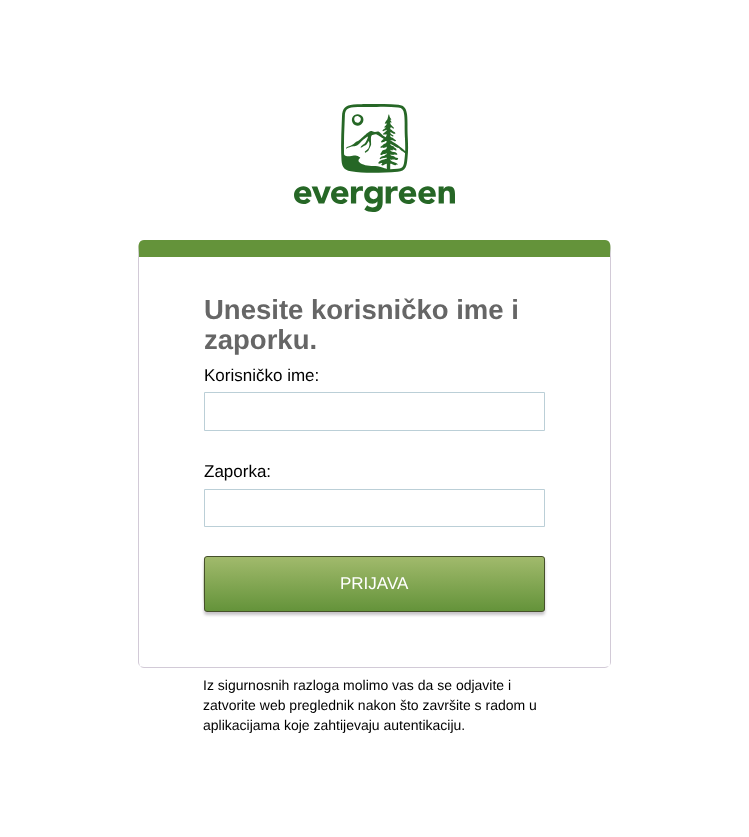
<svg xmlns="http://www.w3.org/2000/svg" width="749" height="837">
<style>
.a{font:bold 27.5px Liberation Sans;fill:#666}
.b{font:17px Liberation Sans;fill:#000}
.c{font:17px Liberation Sans;fill:#fff}
.d{font:14px Liberation Sans;fill:#000}
</style>
<defs>
<linearGradient id="g1" gradientUnits="userSpaceOnUse" x1="375" y1="557" x2="375" y2="611"><stop offset="0" stop-color="#a1ba6c"/><stop offset="1" stop-color="#64933a"/></linearGradient>
</defs>
<rect width="100%" height="100%" fill="#fff"/>
<image href="1.png" x="294" y="104" width="161" height="108"/>
<path fill="#64933a" d="M144 240c-8 0-5 12-5 17h471c0-5 3-17-5-17z"/>
<path fill="#d2cad7" d="M611 662v-418l-1 13v405c0 2 0 3-1 4c1-1 2-2 2-4z"/>
<path fill="#d2cad7" d="M144 668h461c1 0 3-1 4-2c-1 0-3 1-4 1h-461c-2 0-3-1-4-1c1 1 2 2 4 2z"/>
<path fill="#d2cad7" d="M138 246v416c0 2 1 3 2 4c0-1-1-2-1-4v-405l-1-13z"/>
<path fill="none" stroke="#bbcfd7" d="M204.5 392.5h340v38H204.5z"/>
<path fill="none" stroke="#bbcfd7" d="M204.5 489.5h340v37H204.5z"/>
<rect fill="#1e132540" filter="blur(1.5px)" x="204" y="559" width="341" height="56" rx="3"/>
<path fill="url(#g1)" d="M204 559c0 6-1 50 1 52h339l1-2v-50l-1-2h-339z"/>
<rect fill="none" stroke="#46502b" x="204.5" y="556.5" width="340" height="55" rx="2.5"/>
<text class="a" x="204" y="319">Unesite korisničko ime i</text>
<text class="a" x="204" y="349">zaporku.</text>
<text class="b" x="204" y="381">Korisničko ime:</text>
<text class="b" x="204" y="477">Zaporka:</text>
<text class="c" x="340" y="589">PRIJAVA</text>
<text class="d" x="203" y="690">Iz sigurnosnih razloga molimo vas da se odjavite i</text>
<text class="d" x="203" y="710">zatvorite web preglednik nakon što završite s radom u</text>
<text class="d" x="203" y="730">aplikacijama koje zahtijevaju autentikaciju.</text>
</svg>
